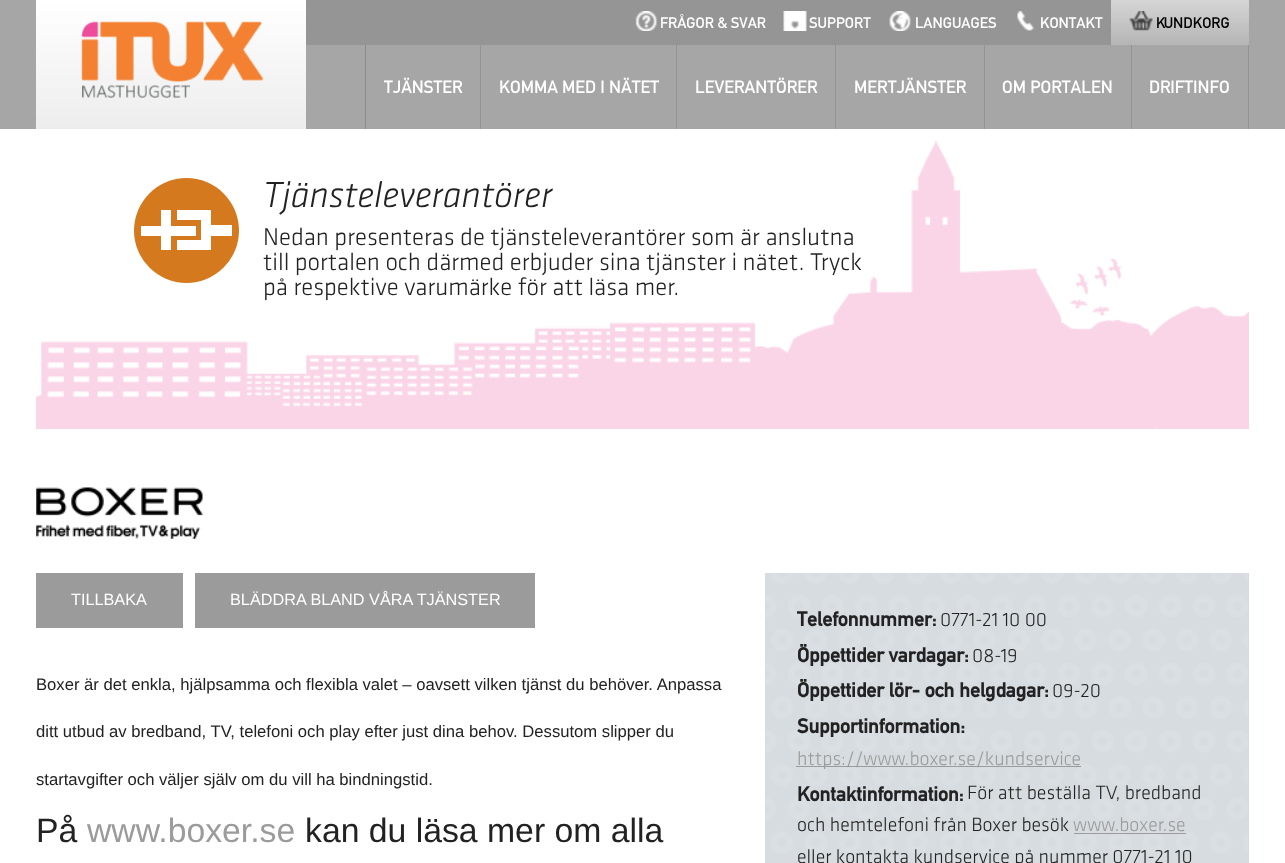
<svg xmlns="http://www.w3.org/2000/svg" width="1285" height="863">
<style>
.a{font:15px 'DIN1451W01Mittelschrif';fill:#fff}
.b{font:15px 'DIN1451W01Mittelschrif';fill:#000}
.c{font:17.5px 'DIN1451W01Mittelschrif';fill:#fff}
.d{font:italic 300 37.5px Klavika;fill:#222}
.e{font:300 25px Klavika;fill:#222}
.f{font:16.25px Liberation Sans;fill:#fff}
.g{font:16.65px Liberation Sans;fill:#222}
.h{font:33.75px Liberation Sans;fill:#222}
.i{font:33.75px Liberation Sans;fill:#9b9b9b}
.j{font:bold 20px 'DIN1451W01Mittelschrif';fill:#222}
.k{font:300 20px Klavika;fill:#222}
.l{font:300 20px Klavika;fill:#9b9b9b}
</style>
<defs>
<linearGradient id="g1" gradientUnits="userSpaceOnUse" x1="171" y1="129" x2="171" y2="0"><stop offset="0" stop-color="#ededed"/><stop offset="1" stop-color="#fff"/></linearGradient>
<linearGradient id="g2" gradientUnits="userSpaceOnUse" x1="1180" y1="45" x2="1180" y2="0"><stop offset="0" stop-color="#b5b5b5"/><stop offset="1" stop-color="#d5d5d5"/></linearGradient>
</defs>
<rect width="100%" height="100%" fill="#fff"/>
<path fill="#a6a6a6" d="M0 0h1285v129H0z"/>
<path fill="url(#g1)" d="M36 0h270v129H36z"/>
<image href="1.png" x="81" y="21" width="183" height="77"/>
<path fill="#959595" d="M306 0h805v45H306z"/>
<image href="2.png" x="635" y="11" width="22" height="20"/>
<image href="3.png" x="783" y="11" width="24" height="20"/>
<image href="4.png" x="889" y="11" width="22" height="20"/>
<image href="5.png" x="1017" y="11" width="18" height="20"/>
<path fill="url(#g2)" d="M1111 0h138v45H1111z"/>
<image href="6.png" x="1129" y="11" width="24" height="20"/>
<path fill="#939393" d="M480 45h1v84H480z"/>
<path fill="#8a8a8a" d="M365 45h1v84H365z"/>
<path fill="#939393" d="M676 45h1v84H676z"/>
<path fill="#939393" d="M835 45h1v84H835z"/>
<path fill="#939393" d="M984 45h1v84H984z"/>
<path fill="#939393" d="M1131 45h1v84H1131z"/>
<path fill="#939393" d="M1248 45h1v84H1248z"/>
<image href="7.png" x="36" y="140" width="1213" height="289"/>
<circle fill="#d5791f" cx="186.5" cy="230.5" r="52.5"/>
<path fill="#fff" d="M196 236v-10h-25v-16h-10v16h-20v10h20v14h10v-14z"/>
<path fill="#fff" d="M232 225h-21v-15h-34v10h24v20h-24v10h34v-14h21z"/>
<image href="8.png" x="36" y="487" width="167" height="52"/>
<path fill="#9b9b9b" d="M36 573h147v55H36z"/>
<path fill="#9b9b9b" d="M195 573h340v55H195z"/>
<path fill="#d6dce0" d="M765 573h484v290H765z"/>
<image href="9.png" x="765" y="573" width="483" height="280"/>
<path fill="#9b9b9b" d="M796 766h285v1H796z"/>
<path fill="#9b9b9b" d="M1074 833h112v1H1074z"/>
<text class="a" x="660" y="28">FRÅGOR &amp; SVAR</text>
<text class="a" x="809" y="28">SUPPORT</text>
<text class="a" x="915" y="28">LANGUAGES</text>
<text class="a" x="1040" y="28">KONTAKT</text>
<text class="b" x="1156" y="28">KUNDKORG</text>
<text class="c" x="384" y="93">TJÄNSTER</text>
<text class="c" x="499" y="93">KOMMA MED I NÄTET</text>
<text class="c" x="695" y="93">LEVERANTÖRER</text>
<text class="c" x="854" y="93">MERTJÄNSTER</text>
<text class="c" x="1002" y="93">OM PORTALEN</text>
<text class="c" x="1149" y="93">DRIFTINFO</text>
<text class="d" x="263" y="207">Tjänsteleverantörer</text>
<text class="e" x="263" y="245">Nedan presenteras de tjänsteleverantörer som är anslutna</text>
<text class="e" x="263" y="270">till portalen och därmed erbjuder sina tjänster i nätet. Tryck</text>
<text class="e" x="263" y="295">på respektive varumärke för att läsa mer.</text>
<text class="f" x="71" y="605">TILLBAKA</text>
<text class="f" x="230" y="605">BLÄDDRA BLAND VÅRA TJÄNSTER</text>
<text class="g" x="36" y="690">Boxer är det enkla, hjälpsamma och flexibla valet – oavsett vilken tjänst du behöver. Anpassa</text>
<text class="g" x="36" y="737">ditt utbud av bredband, TV, telefoni och play efter just dina behov. Dessutom slipper du</text>
<text class="g" x="36" y="785">startavgifter och väljer själv om du vill ha bindningstid.</text>
<text class="h" x="36" y="842">På</text>
<text class="i" x="87" y="842">www.boxer.se</text>
<text class="h" x="305" y="842">kan du läsa mer om alla</text>
<text class="j" x="797" y="626">Telefonnummer:</text>
<text class="k" x="940" y="626">0771-21 10 00</text>
<text class="j" x="797" y="662">Öppettider vardagar:</text>
<text class="k" x="972" y="662">08-19</text>
<text class="j" x="797" y="697">Öppettider lör- och helgdagar:</text>
<text class="k" x="1052" y="697">09-20</text>
<text class="j" x="797" y="733">Supportinformation:</text>
<text class="l" x="797" y="765">https://www.boxer.se/kundservice</text>
<text class="k" x="967" y="799">För att beställa TV, bredband</text>
<text class="k" x="797" y="831">och hemtelefoni från Boxer besök</text>
<text class="l" x="1073" y="831">www.boxer.se</text>
<text class="k" x="797" y="863">eller kontakta kundservice på nummer 0771-21 10</text>
<text class="j" x="797" y="801">Kontaktinformation:</text>
</svg>
